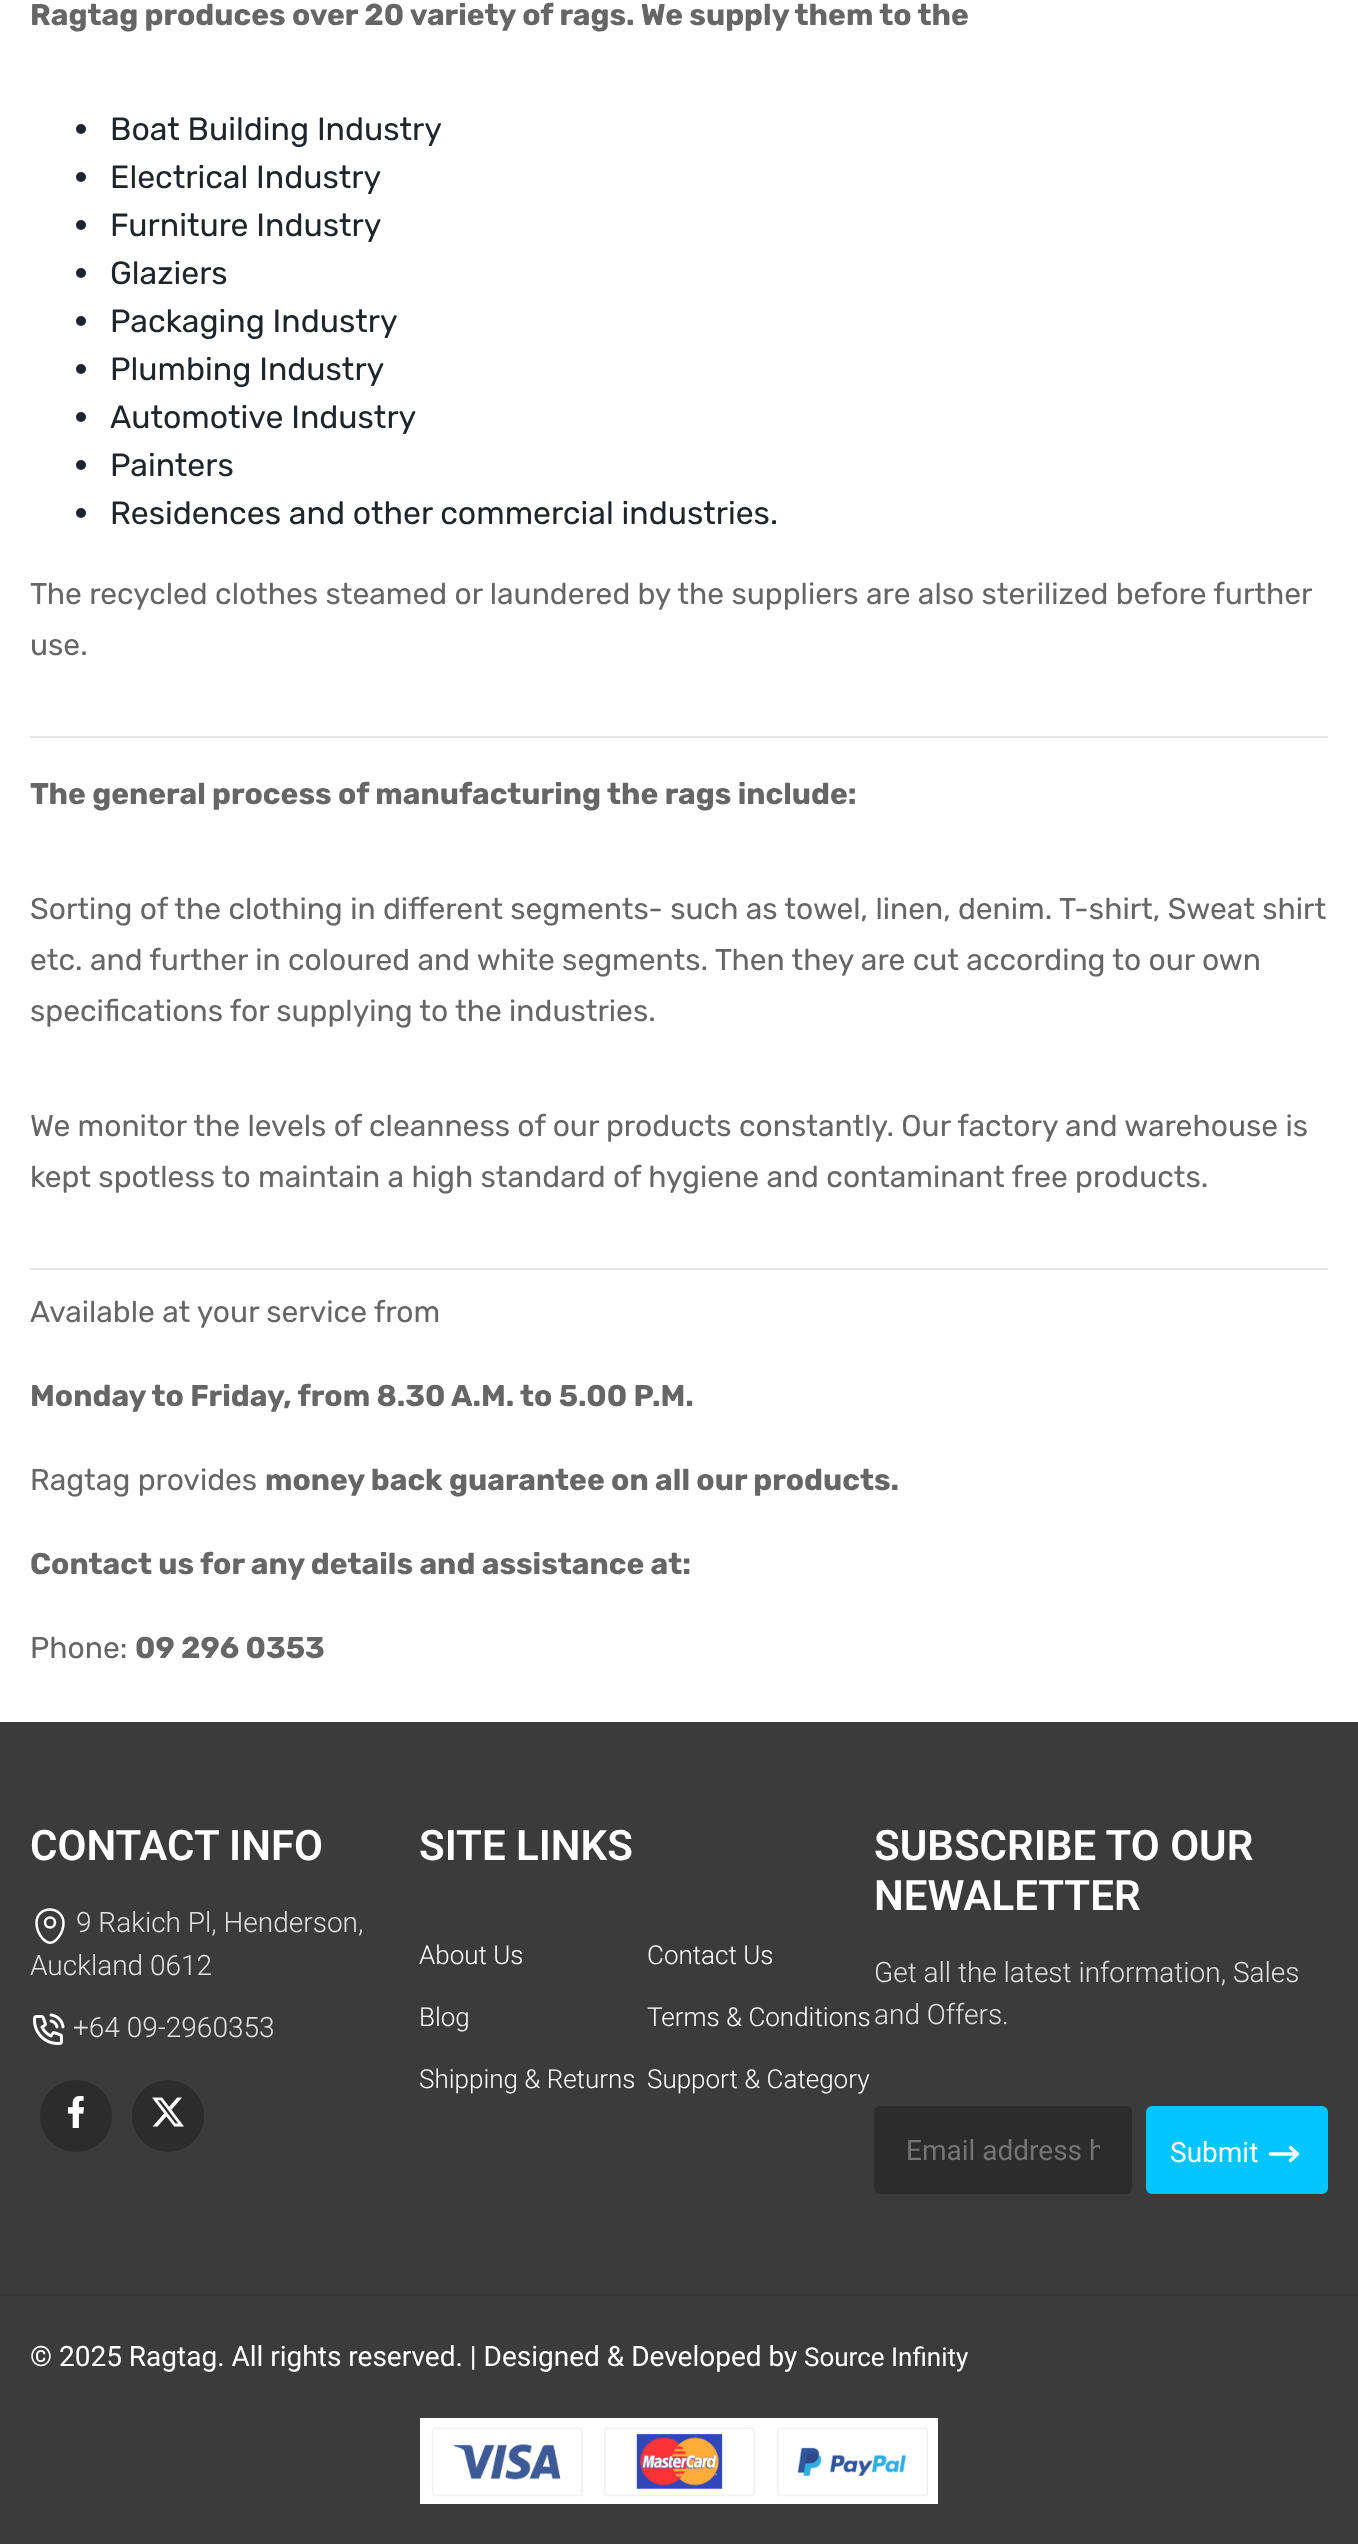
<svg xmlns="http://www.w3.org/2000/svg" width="1358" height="2544">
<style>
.a{font:bold 30px Rubik;fill:#666}
.b{font:32px Rubik;fill:#212529}
.c{font:30px Rubik;fill:#666}
.d{font:600 42px Roboto;fill:#fff}
.e{font:300 28px Roboto;fill:#e1e1e1}
.f{font:300 26px Roboto;fill:#fff}
.g{font:28px Roboto;fill:#757575}
.h{font:28px Roboto;fill:#fff}
.i{font:26px Roboto;fill:#fff}
</style>
<defs>
<clipPath id="clip1"><path d="M906 2134h194v32H906z"/></clipPath>
</defs>
<rect width="100%" height="100%" fill="#fff"/>
<circle fill="#212529" cx="81" cy="129" r="5"/>
<circle fill="#212529" cx="81" cy="177" r="5"/>
<circle fill="#212529" cx="81" cy="225" r="5"/>
<circle fill="#212529" cx="81" cy="273" r="5"/>
<circle fill="#212529" cx="81" cy="321" r="5"/>
<circle fill="#212529" cx="81" cy="369" r="5"/>
<circle fill="#212529" cx="81" cy="417" r="5"/>
<circle fill="#212529" cx="81" cy="465" r="5"/>
<circle fill="#212529" cx="81" cy="513" r="5"/>
<path fill="#e6e6e6" d="M30 736h1298v2H30z"/>
<path fill="#e6e6e6" d="M30 1268h1298v2H30z"/>
<path fill="#3b3b3b" d="M0 1722h1358v822H0z"/>
<path fill="none" stroke="#fff" stroke-width="2.5" d="M36.5 1923c0-18 26.5-18 27 0c0 4.5-2 10-4.5 13.5c-5 7-10 8.5-16 2.5c-4-4.5-6.5-10.5-6.5-16z"/>
<circle fill="none" stroke="#fff" stroke-width="2.5" cx="50" cy="1922.5" r="5"/>
<image href="1.png" x="33" y="2013" width="32" height="32"/>
<circle fill="#2c2c2c" cx="76" cy="2116" r="36"/>
<image href="2.png" x="68" y="2096" width="16" height="32"/>
<circle fill="#2c2c2c" cx="168" cy="2116" r="36"/>
<image href="3.png" x="152" y="2097" width="32" height="30"/>
<rect fill="#2c2c2c" x="874" y="2106" width="258" height="88" rx="6"/>
<rect fill="#00c5ff" stroke="#00c5ff" stroke-width="2" x="1147" y="2107" width="180" height="86" rx="5"/>
<path fill="none" stroke="#fff" stroke-width="3.3" stroke-linecap="round" stroke-linejoin="round" d="M1270.5 2154h27m0 0l-7-6.5m7 6.5l-7 6.5"/>
<path fill="#343434" d="M0 2294h1358v2H0z"/>
<image href="4.png" x="420" y="2418" width="518" height="86"/>
<text class="a" x="30" y="25">Ragtag produces over 20 variety of rags. We supply them to the</text>
<text class="b" x="110" y="140">Boat Building Industry</text>
<text class="b" x="110" y="188">Electrical Industry</text>
<text class="b" x="110" y="236">Furniture Industry</text>
<text class="b" x="110" y="284">Glaziers</text>
<text class="b" x="110" y="332">Packaging Industry</text>
<text class="b" x="110" y="380">Plumbing Industry</text>
<text class="b" x="110" y="428">Automotive Industry</text>
<text class="b" x="110" y="476">Painters</text>
<text class="b" x="110" y="524">Residences and other commercial industries.</text>
<text class="c" x="30" y="604">The recycled clothes steamed or laundered by the suppliers are also sterilized before further</text>
<text class="c" x="30" y="655">use.</text>
<text class="a" x="30" y="804">The general process of manufacturing the rags include:</text>
<text class="c" x="30" y="919">Sorting of the clothing in different segments- such as towel, linen, denim. T-shirt, Sweat shirt</text>
<text class="c" x="30" y="970">etc. and further in coloured and white segments. Then they are cut according to our own</text>
<text class="c" x="30" y="1021">specifications for supplying to the industries.</text>
<text class="c" x="30" y="1136">We monitor the levels of cleanness of our products constantly. Our factory and warehouse is</text>
<text class="c" x="30" y="1187">kept spotless to maintain a high standard of hygiene and contaminant free products.</text>
<text class="c" x="30" y="1322">Available at your service from</text>
<text class="a" x="30" y="1406">Monday to Friday, from 8.30 A.M. to 5.00 P.M.</text>
<text class="c" x="30" y="1490">Ragtag provides</text>
<text class="a" x="265" y="1490">money back guarantee on all our products.</text>
<text class="a" x="30" y="1574">Contact us for any details and assistance at:</text>
<text class="c" x="30" y="1658">Phone:</text>
<text class="a" x="135" y="1658">09 296 0353</text>
<text class="d" x="30" y="1860">CONTACT INFO</text>
<text class="e" x="76" y="1932">9 Rakich Pl, Henderson,</text>
<text class="e" x="30" y="1975">Auckland 0612</text>
<text class="e" x="73" y="2037">+64 09-2960353</text>
<text class="d" x="419" y="1860">SITE LINKS</text>
<text class="f" x="419" y="1964">About Us</text>
<text class="f" x="647" y="1964">Contact Us</text>
<text class="f" x="419" y="2026">Blog</text>
<text class="f" x="647" y="2026">Terms &amp; Conditions</text>
<text class="f" x="419" y="2088">Shipping &amp; Returns</text>
<text class="f" x="647" y="2088">Support &amp; Category</text>
<text class="d" x="874" y="1860">SUBSCRIBE TO OUR</text>
<text class="d" x="874" y="1910">NEWALETTER</text>
<text class="e" x="874" y="1982">Get all the latest information, Sales</text>
<text class="e" x="874" y="2024">and Offers.</text>
<g clip-path="url(#clip1)">
<text class="g" x="906" y="2160">Email address h</text>
</g>
<text class="h" x="1170" y="2162">Submit</text>
<text class="h" x="30" y="2366">© 2025 Ragtag. All rights reserved. | Designed &amp; Developed by</text>
<text class="i" x="804" y="2366">Source Infinity</text>
</svg>
